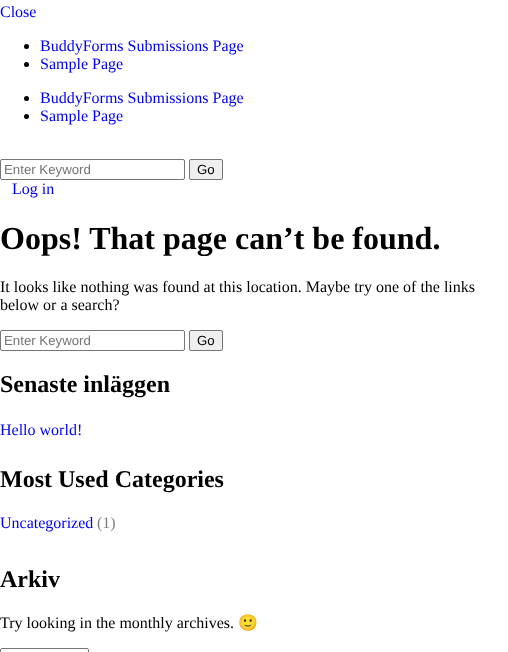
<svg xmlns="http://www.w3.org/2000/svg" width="508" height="652">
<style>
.a{font:16px Liberation Serif;fill:#00e}
.b{font:13.25px Liberation Sans;fill:#757575}
.c{font:13.25px Liberation Sans;fill:#000}
.d{font:bold 32px Liberation Serif;fill:#000}
.e{font:16px Liberation Serif;fill:#000}
.f{font:bold 24px Liberation Serif;fill:#000}
.g{font:16px Liberation Serif;fill:#7d7d7d}
.h{font:16px Noto Color Emoji;fill:#000}
</style>
<rect width="100%" height="100%" fill="#fff"/>
<circle fill="#000" cx="26.5" cy="46.5" r="2.5"/>
<circle fill="#000" cx="26.5" cy="64.5" r="2.5"/>
<circle fill="#000" cx="26.5" cy="98.5" r="2.5"/>
<circle fill="#000" cx="26.5" cy="116.5" r="2.5"/>
<rect fill="none" stroke="#767676" x="0.5" y="159.5" width="184" height="20" rx="1.5"/>
<rect fill="#efefef" stroke="#767676" x="189.5" y="159.5" width="33" height="20" rx="1.5"/>
<rect fill="none" stroke="#767676" x="0.5" y="330.5" width="184" height="20" rx="1.5"/>
<rect fill="#efefef" stroke="#767676" x="189.5" y="330.5" width="33" height="20" rx="1.5"/>
<rect fill="none" stroke="#767676" x="0.5" y="648.5" width="88" height="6" rx="1.5"/>
<text class="a" x="0" y="17">Close</text>
<text class="a" x="40" y="51">BuddyForms Submissions Page</text>
<text class="a" x="40" y="69">Sample Page</text>
<text class="a" x="40" y="103">BuddyForms Submissions Page</text>
<text class="a" x="40" y="121">Sample Page</text>
<text class="b" x="4" y="174">Enter Keyword</text>
<text class="c" x="197" y="174">Go</text>
<text class="a" x="12" y="194">Log in</text>
<text class="d" x="0" y="249">Oops! That page can’t be found.</text>
<text class="e" x="0" y="292">It looks like nothing was found at this location. Maybe try one of the links</text>
<text class="e" x="0" y="310">below or a search?</text>
<text class="b" x="4" y="345">Enter Keyword</text>
<text class="c" x="197" y="345">Go</text>
<text class="f" x="0" y="392">Senaste inläggen</text>
<text class="a" x="0" y="435">Hello world!</text>
<text class="f" x="0" y="487">Most Used Categories</text>
<text class="a" x="0" y="528">Uncategorized</text>
<text class="g" x="97" y="528">(1)</text>
<text class="f" x="0" y="587">Arkiv</text>
<text class="e" x="0" y="628">Try looking in the monthly archives.</text>
<text class="h" x="238" y="628">🙂</text>
</svg>
